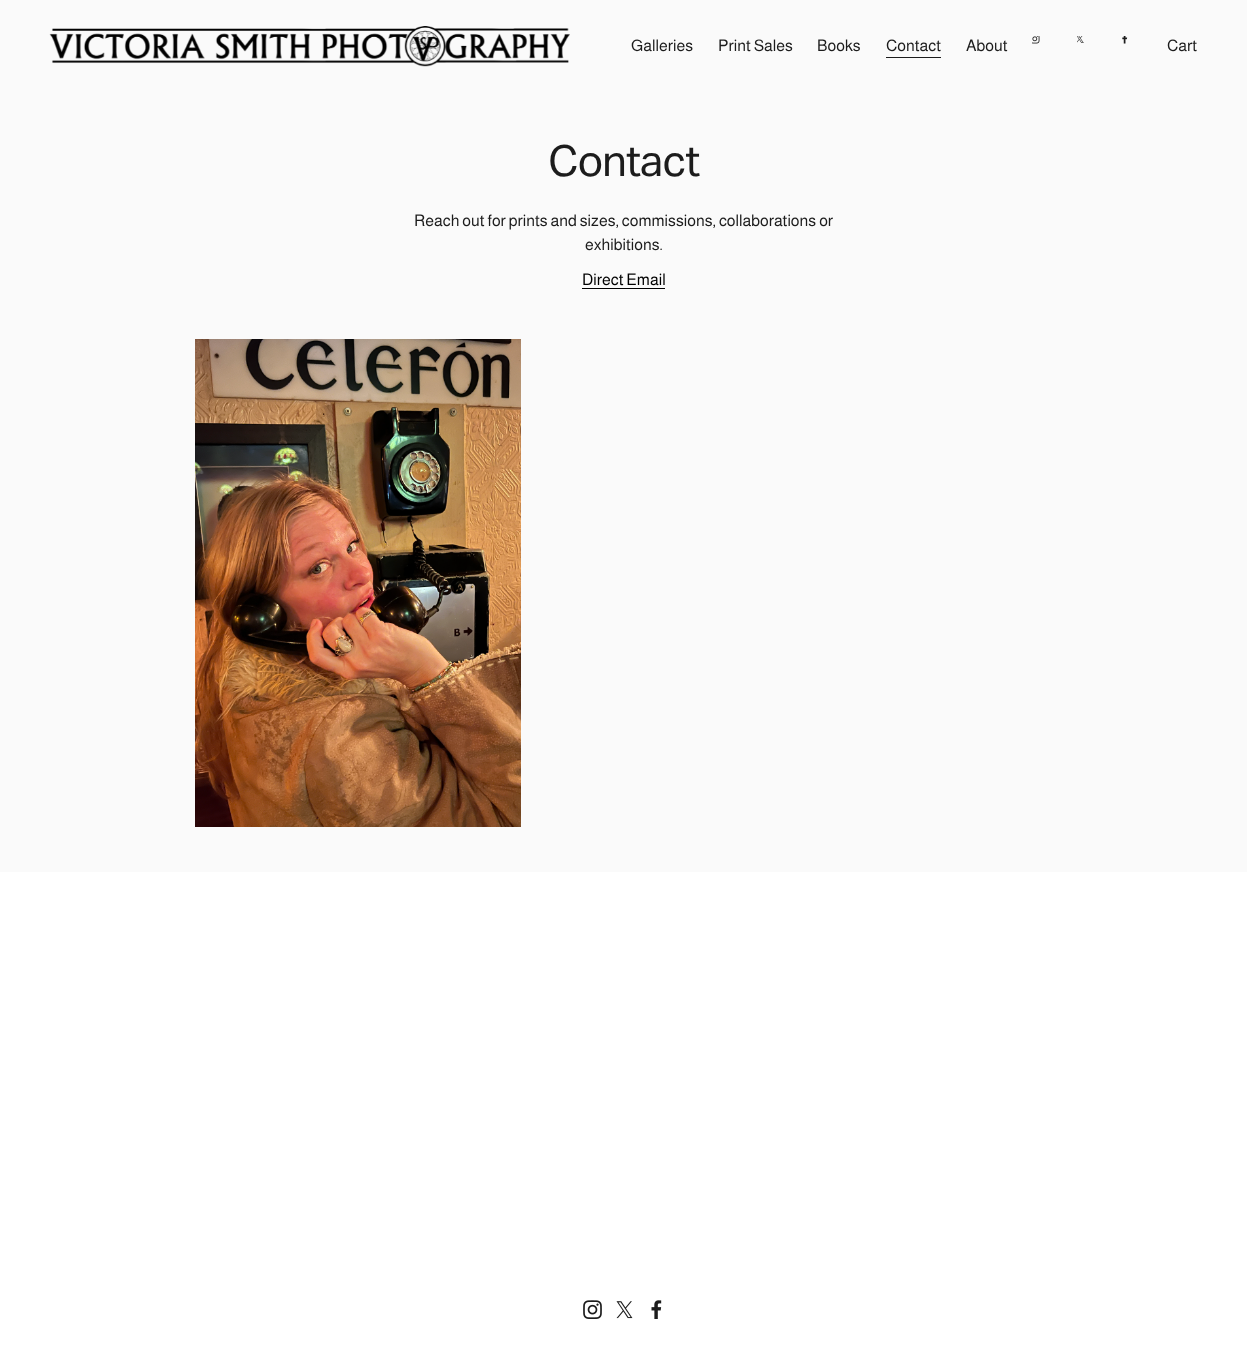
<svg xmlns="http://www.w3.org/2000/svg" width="1247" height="1363">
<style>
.a{font:16px Almarai;fill:#1c1c1c}
.b{font:43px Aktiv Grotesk;letter-spacing:-1px;fill:#1c1c1c}
.c{font:16px Almarai;fill:#000}
</style>
<rect width="100%" height="100%" fill="#fff"/>
<path fill="#fafafa" d="M0 0h1247v872H0z"/>
<image href="1.png" x="49" y="26" width="521" height="41"/>
<path fill="#1c1c1c" d="M886 57h55v1H886z"/>
<image href="2.png" x="1032" y="36" width="8" height="8"/>
<image href="3.png" x="1077" y="36" width="7" height="7"/>
<image href="4.png" x="1122" y="36" width="6" height="8"/>
<path fill="#000" d="M582 288h83v1H582z"/>
<image href="5.png" x="195" y="339" width="326" height="488"/>
<image href="6.png" x="583" y="1300" width="19" height="19"/>
<image href="7.png" x="616" y="1301" width="17" height="18"/>
<image href="8.png" x="651" y="1300" width="11" height="19"/>
<text class="a" x="631" y="51">Galleries</text>
<text class="a" x="718" y="51">Print Sales</text>
<text class="a" x="817" y="51">Books</text>
<text class="a" x="886" y="51">Contact</text>
<text class="a" x="966" y="51">About</text>
<text class="a" x="1167" y="51">Cart</text>
<text class="b" x="548" y="176">Contact</text>
<text class="a" x="414" y="226">Reach out for prints and sizes, commissions, collaborations or</text>
<text class="a" x="585" y="250">exhibitions.</text>
<text class="c" x="582" y="285">Direct Email</text>
</svg>
